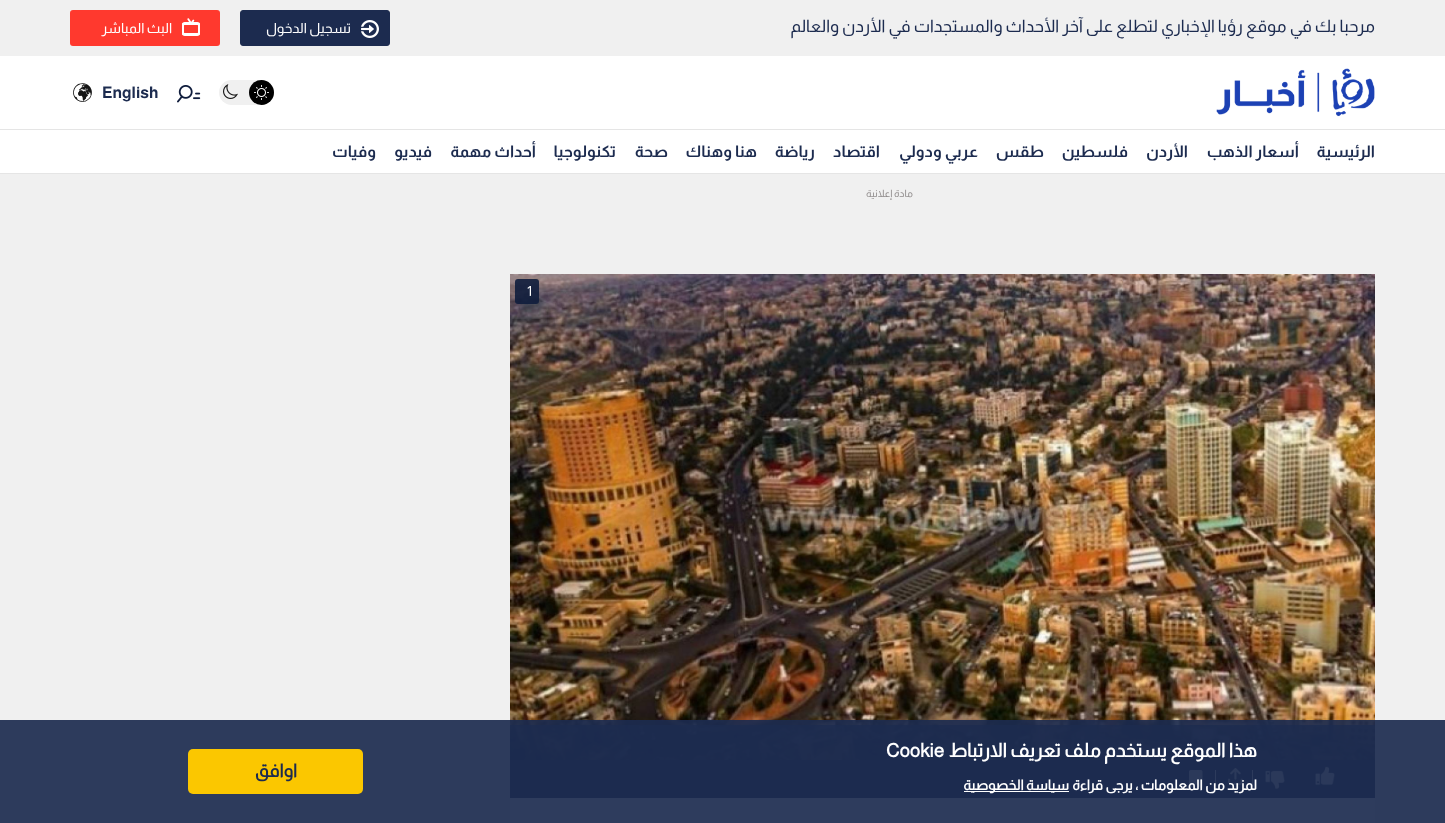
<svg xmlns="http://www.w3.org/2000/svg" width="1445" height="823">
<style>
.a{font:17px Almarai;direction:rtl;fill:#1c2b4f}
.b{font:14px Almarai;direction:rtl;fill:#fff}
.c{font:bold 16px Almarai;fill:#1c2b4f}
.d{font:bold 16px Almarai;direction:rtl;fill:#1c2b4f}
.e{font:bold 19px 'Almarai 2';direction:rtl;fill:#fff}
.f{font:bold 19px 'Almarai 2';fill:#fff}
.g{font:bold 14px 'Almarai 2';direction:rtl;fill:#fff}
.h{font:bold 18px 'Almarai 2';direction:rtl;fill:#1c2b4f}
.i{font:10px Almarai;direction:rtl;fill:#918d8d}
.j{font:14px Almarai;fill:#fff}
</style>
<rect width="100%" height="100%" fill="#f0f0f0"/>
<rect fill="#1c2b4f" stroke="#1c2b4f" x="240.5" y="10.5" width="149" height="35" rx="2.5"/>
<image href="1.png" x="361" y="20" width="18" height="18"/>
<rect fill="#ff392e" x="70" y="10" width="150" height="36" rx="3"/>
<image href="2.png" x="182" y="18" width="18" height="18"/>
<path fill="#fff" d="M0 56h1445v117H0z"/>
<image href="3.png" x="1216" y="68" width="159" height="49"/>
<rect fill="#f0f0f0" x="219" y="80" width="55" height="25" rx="12.5"/>
<circle fill="#000" cx="261.5" cy="92.5" r="12.5"/>
<image href="4.png" x="254" y="85" width="15" height="15"/>
<image href="5.png" x="223" y="84" width="15" height="15"/>
<image href="6.png" x="177" y="85" width="24" height="18"/>
<image href="7.png" x="73" y="83" width="19" height="19"/>
<path fill="#e5e5e5" d="M0 129h1445v1H0z"/>
<path fill="#e5e5e5" d="M0 173h1445v1H0z"/>
<path fill="#fff" d="M510 798h865v25H510z"/>
<image href="8.png" x="510" y="274" width="865" height="486"/>
<path fill="#1c2b4fc7" d="M510 725h865v35H510z"/>
<path fill="#1c2b4f" d="M510 760h865v38H510z"/>
<image href="9.png" x="1315" y="766" width="20" height="20"/>
<image href="10.png" x="1265" y="770" width="20" height="20"/>
<path fill="#f0f0f0" d="M1252 770h1v16H1252z"/>
<image href="11.png" x="1228" y="768" width="15" height="17"/>
<path fill="#f0f0f0" d="M1215 770h1v16H1215z"/>
<image href="12.png" x="1189" y="770" width="14" height="18"/>
<path fill="#1c2b4feb" d="M0 720h1445v103H0z"/>
<path fill="#fff" d="M964 791h105v1H964z"/>
<rect fill="#fbc700" x="188" y="749" width="175" height="45" rx="5"/>
<rect fill="#0f1c3ce3" x="515" y="279" width="24" height="25" rx="3"/>
<text class="a" x="1375" y="32">مرحبا بك في موقع رؤيا الإخباري لتطلع على آخر الأحداث والمستجدات في الأردن والعالم</text>
<text class="b" x="351" y="33">تسجيل الدخول</text>
<text class="b" x="172" y="33">البث المباشر</text>
<text class="c" x="102" y="98">English</text>
<text class="d" x="1375" y="157">الرئيسية</text>
<text class="d" x="1299" y="157">أسعار الذهب</text>
<text class="d" x="1188" y="157">الأردن</text>
<text class="d" x="1128" y="157">فلسطين</text>
<text class="d" x="1044" y="157">طقس</text>
<text class="d" x="978" y="157">عربي ودولي</text>
<text class="d" x="880" y="157">اقتصاد</text>
<text class="d" x="815" y="157">رياضة</text>
<text class="d" x="757" y="157">هنا وهناك</text>
<text class="d" x="668" y="157">صحة</text>
<text class="d" x="616" y="157">تكنولوجيا</text>
<text class="d" x="536" y="157">أحداث مهمة</text>
<text class="d" x="432" y="157">فيديو</text>
<text class="d" x="376" y="157">وفيات</text>
<text class="e" x="1257" y="757">هذا الموقع يستخدم ملف تعريف الارتباط</text>
<text class="f" x="886" y="757">Cookie</text>
<text class="g" x="1257" y="790">لمزيد من المعلومات ، يرجى قراءة</text>
<text class="g" x="1069" y="790">سياسة الخصوصية</text>
<text class="h" x="297" y="777">اوافق</text>
<text class="i" x="913" y="197">مادة إعلانية</text>
<text class="j" x="527" y="296">1</text>
</svg>
